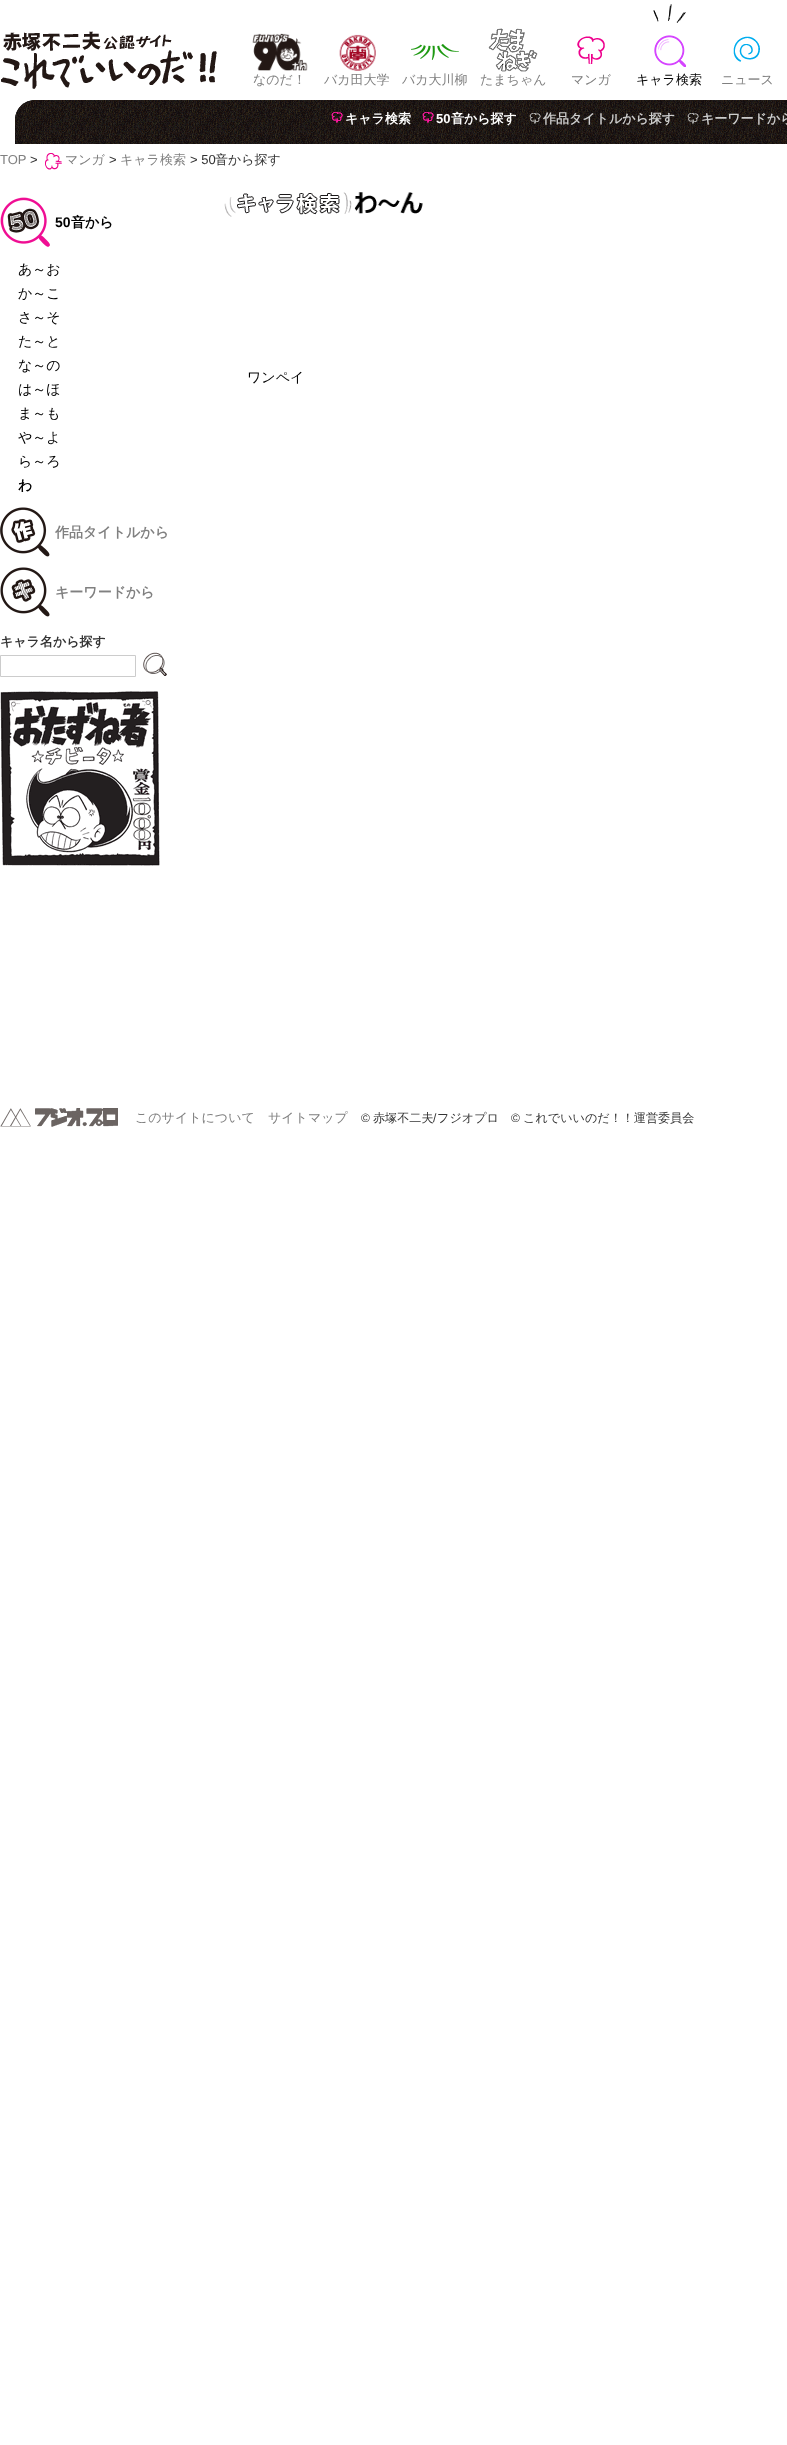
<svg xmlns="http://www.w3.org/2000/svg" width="787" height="2445">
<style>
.a{font:500 13px WenQuanYi Zen Hei;fill:#808080}
.b{font:500 13px WenQuanYi Zen Hei;fill:#000}
.c{font:bold 13px WenQuanYi Zen Hei;fill:#fff}
.d{font:bold 13px Liberation Sans;fill:#fff}
.e{font:bold 13px WenQuanYi Zen Hei;fill:#ccc}
.f{font:13px Liberation Sans;fill:#808080}
.g{font:13px Liberation Sans;fill:#333}
.h{font:500 13px WenQuanYi Zen Hei;fill:#333}
.i{font:bold 14px Liberation Sans;fill:#000}
.j{font:bold 14px WenQuanYi Zen Hei;fill:#000}
.k{font:500 14px WenQuanYi Zen Hei;fill:#000}
.l{font:bold 14px WenQuanYi Zen Hei;fill:#808080}
.m{font:bold 13px WenQuanYi Zen Hei;fill:#333}
.n{font:12.1px Liberation Sans;fill:#333}
.o{font:500 12.1px WenQuanYi Zen Hei;fill:#333}
</style>
<rect width="100%" height="100%" fill="#fff"/>
<image href="1.png" x="1" y="31" width="216" height="58"/>
<image href="2.png" x="252" y="33" width="56" height="38"/>
<image href="3.png" x="339" y="34" width="37" height="37"/>
<image href="4.png" x="411" y="44" width="48" height="16"/>
<image href="5.png" x="488" y="28" width="50" height="44"/>
<image href="6.png" x="577" y="36" width="28" height="28"/>
<image href="7.png" x="654" y="35" width="32" height="32"/>
<image href="8.png" x="653" y="4" width="33" height="19"/>
<image href="9.png" x="733" y="36" width="27" height="26"/>
<path fill="#111" d="M35 100h752c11 0 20 9 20 20v24h-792v-24c0-11 9-20 20-20z"/>
<image href="10.png" x="15" y="100" width="772" height="44"/>
<image href="11.png" x="331" y="112" width="12" height="11"/>
<image href="12.png" x="422" y="112" width="12" height="11"/>
<image href="13.png" x="529" y="113" width="12" height="11"/>
<image href="14.png" x="687" y="113" width="12" height="11"/>
<image href="15.png" x="45" y="153" width="17" height="17"/>
<image href="16.png" x="0" y="197" width="50" height="50"/>
<image href="17.png" x="0" y="507" width="50" height="50"/>
<image href="18.png" x="0" y="567" width="50" height="50"/>
<path fill="none" stroke="#ccc" d="M0.5 655.5h135v21H0.5z"/>
<image href="19.png" x="143" y="652" width="24" height="24"/>
<image href="20.png" x="0" y="691" width="160" height="175"/>
<image href="21.png" x="224" y="192" width="128" height="25"/>
<image href="22.png" x="354" y="192" width="69" height="22"/>
<image href="23.png" x="0" y="1108" width="118" height="19"/>
<text class="a" x="253" y="84">なのだ！</text>
<text class="a" x="324" y="84">バカ田大学</text>
<text class="a" x="402" y="84">バカ大川柳</text>
<text class="a" x="480" y="84">たまちゃん</text>
<text class="a" x="571" y="84">マンガ</text>
<text class="b" x="636" y="84">キャラ検索</text>
<text class="a" x="721" y="84">ニュース</text>
<text class="c" x="345" y="123">キャラ検索</text>
<text class="d" x="436" y="123">50</text>
<text class="c" x="451" y="123">音から探す</text>
<text class="e" x="543" y="123">作品タイトルから探す</text>
<text class="e" x="701" y="123">キーワードから</text>
<text class="f" x="0" y="164">TOP</text>
<text class="g" x="30" y="164">&gt;</text>
<text class="a" x="65" y="164">マンガ</text>
<text class="g" x="109" y="164">&gt;</text>
<text class="a" x="120" y="164">キャラ検索</text>
<text class="g" x="190" y="164">&gt; 50</text>
<text class="h" x="215" y="164">音から探す</text>
<text class="i" x="55" y="227">50</text>
<text class="j" x="71" y="227">音から</text>
<text class="k" x="18" y="274">あ～お</text>
<text class="k" x="18" y="298">か～こ</text>
<text class="k" x="18" y="322">さ～そ</text>
<text class="k" x="18" y="346">た～と</text>
<text class="k" x="18" y="370">な～の</text>
<text class="k" x="18" y="394">は～ほ</text>
<text class="k" x="18" y="418">ま～も</text>
<text class="k" x="18" y="442">や～よ</text>
<text class="k" x="18" y="466">ら～ろ</text>
<text class="j" x="18" y="490">わ</text>
<text class="l" x="55" y="537">作品タイトルから</text>
<text class="l" x="55" y="597">キーワードから</text>
<text class="m" x="0" y="646">キャラ名から探す</text>
<text class="k" x="247" y="382">ワンペイ</text>
<text class="a" x="135" y="1122">このサイトについて</text>
<text class="a" x="268" y="1122">サイトマップ</text>
<text class="n" x="361" y="1122">©</text>
<text class="o" x="373" y="1122">赤塚不二夫 フジオプロ</text>
<text class="o" x="523" y="1122">これでいいのだ！！運営委員会</text>
<text class="n" x="433" y="1122">/</text>
<text class="n" x="511" y="1122">©</text>
</svg>
